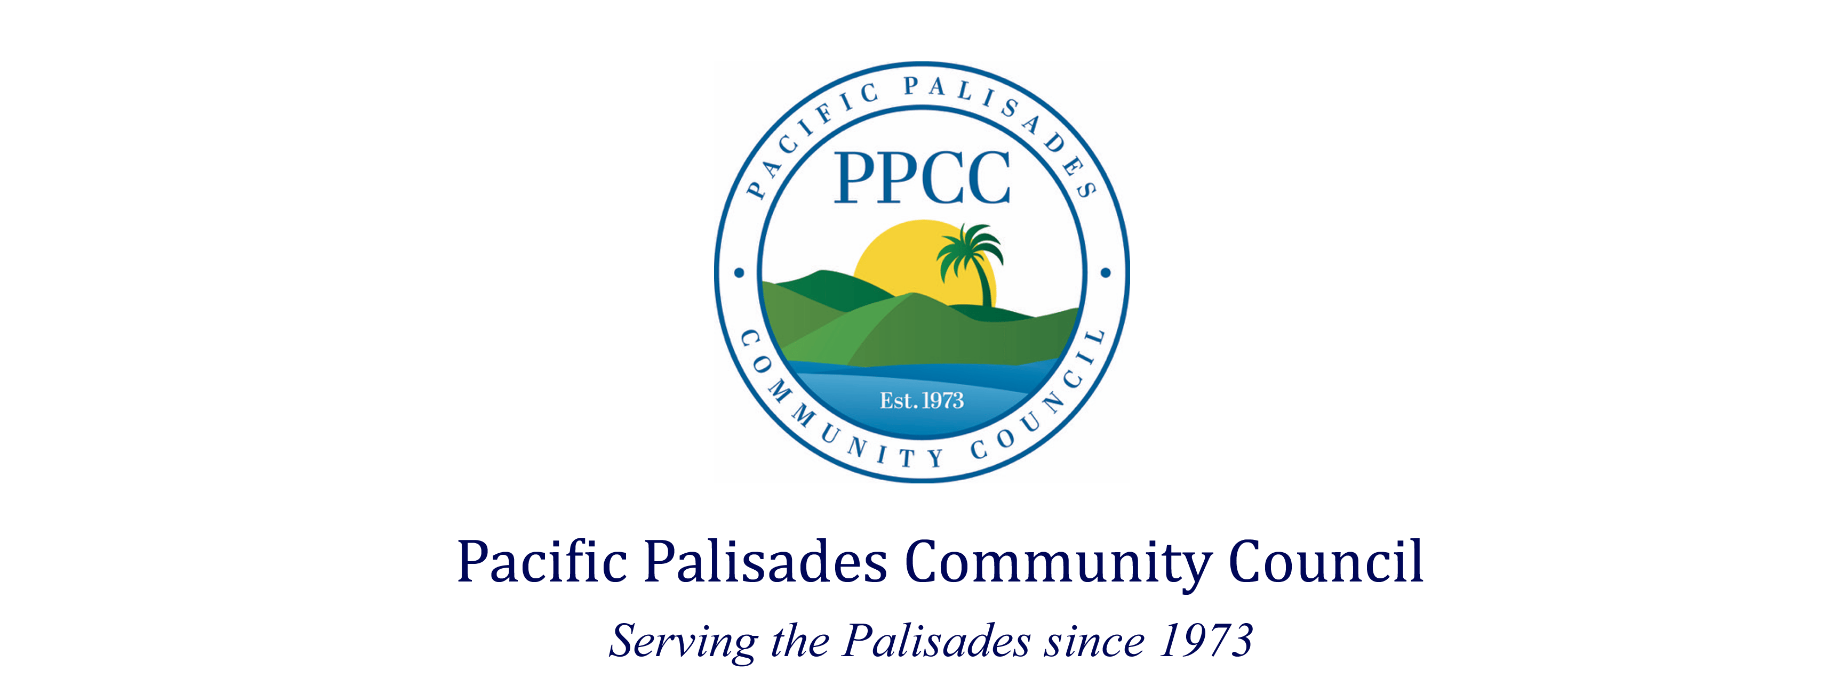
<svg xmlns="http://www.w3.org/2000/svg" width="1821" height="688">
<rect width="100%" height="100%" fill="#fff"/>
<image href="1.png" x="458" y="61" width="966" height="606"/>
</svg>
